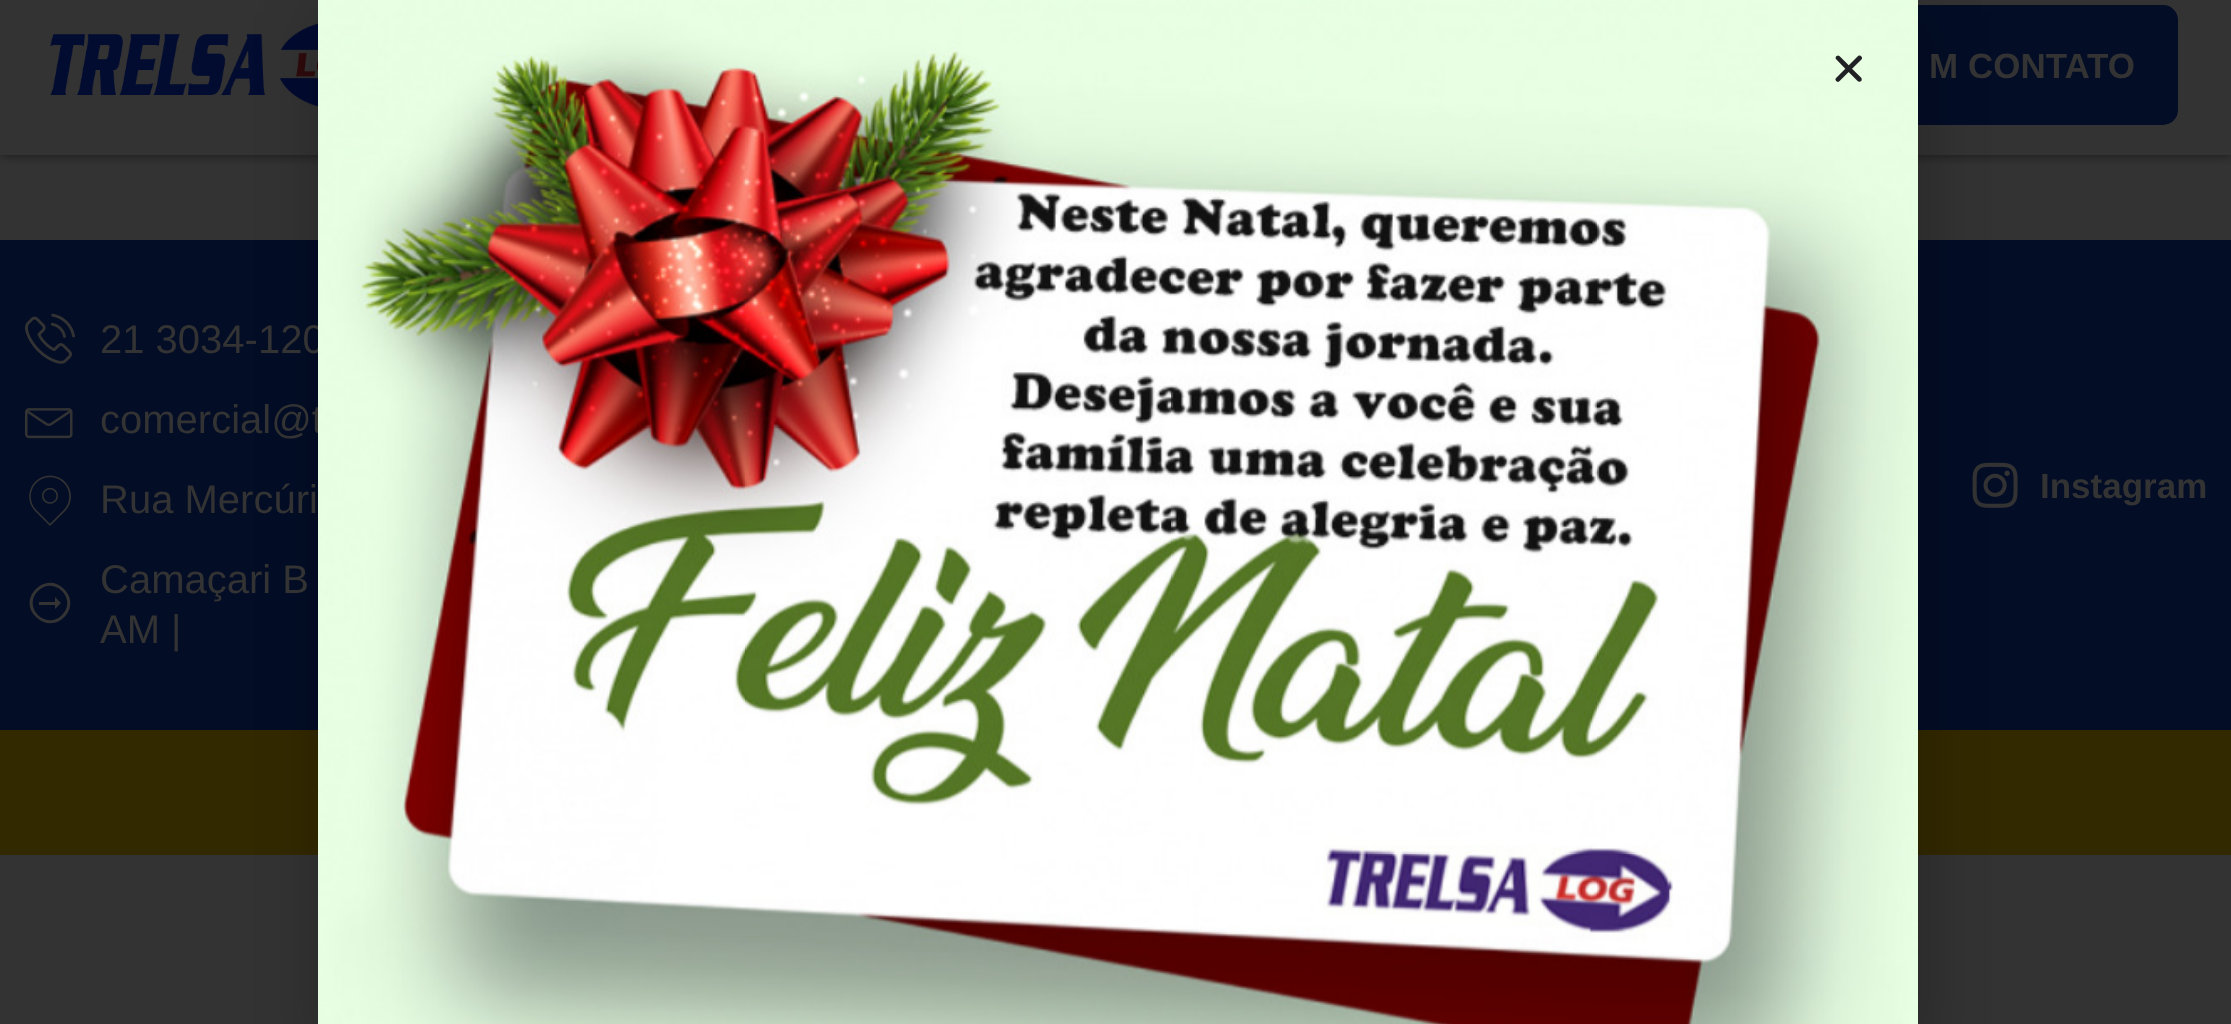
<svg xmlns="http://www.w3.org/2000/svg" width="2231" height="1024">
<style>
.a{font:bold 35px Liberation Sans;fill:#333}
.b{font:40px Liberation Sans;fill:#333}
</style>
<defs>
<clipPath id="clip1"><path d="M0 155h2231v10H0z"/></clipPath>
</defs>
<rect width="100%" height="100%" fill="#333"/>
<g clip-path="url(#clip1)">
<path fill="#00000080" filter="blur(6px)" d="M0 0h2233v155H0z"/>
</g>
<image href="3.png" x="50" y="23" width="268" height="84"/>
<rect fill="#030d26" stroke="#333" stroke-width="5" x="1732.5" y="2.5" width="448" height="125" rx="17.5"/>
<path fill="#030d26" d="M0 240h2231v490H0z"/>
<image href="7.png" x="1972" y="462" width="46" height="46"/>
<path fill="#332901" d="M0 730h2231v125H0z"/>
<path fill="#00000033" filter="blur(29px)" d="M315 13h1615v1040H315z"/>
<image href="4.png" x="25" y="313" width="50" height="51"/>
<image href="5.png" x="25" y="408" width="48" height="31"/>
<image href="6.png" x="29" y="475" width="42" height="51"/>
<path fill="#333" d="M64 589c-19-19-47 10-28 28c19 19 47-9 28-28zm-26 2c16-16 40 8 24 24c-16 16-40-8-24-24zm17 6v5h-16v3h16v4l6-6z"/>
<text class="a" x="1929" y="78">M CONTATO</text>
<text class="b" x="100" y="353">21 3034-120</text>
<text class="b" x="100" y="433">comercial@t</text>
<image href="1.png" x="318" y="0" width="1600" height="1024"/>
<image href="2.png" x="1835" y="55" width="27" height="27"/>
<text class="b" x="100" y="513">Rua Mercúri</text>
<text class="b" x="100" y="593">Camaçari B</text>
<text class="b" x="100" y="643">AM |</text>
<text class="a" x="2040" y="498">Instagram</text>
</svg>
